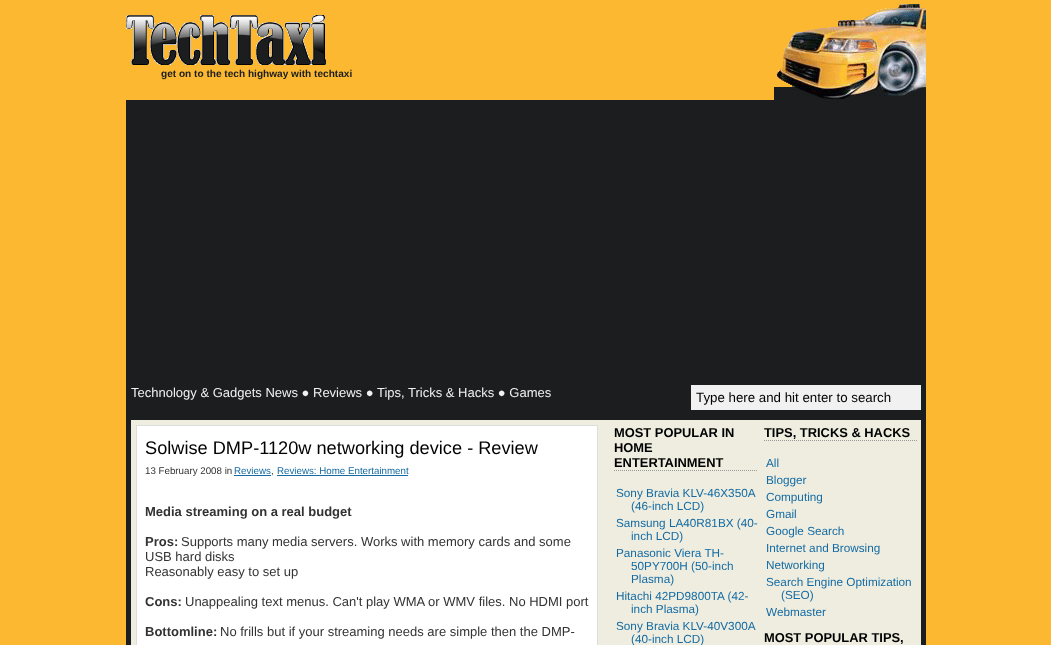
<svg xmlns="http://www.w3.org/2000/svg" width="1051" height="645">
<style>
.a{font:bold 10.1px Liberation Sans;fill:#1b1d1e}
.b{font:13px Liberation Sans;fill:#f1f1f1}
.c{font:13.3px Liberation Sans;fill:#000}
.d{font:18.2px Liberation Sans;fill:#000}
.e{font:9.75px Liberation Sans;fill:#333}
.f{font:9.75px Liberation Sans;fill:#146ba4}
.g{font:bold 13px Liberation Sans;fill:#333}
.h{font:13px Liberation Sans;fill:#333}
.i{font:bold 12.9px Liberation Sans;fill:#000}
.j{font:11.75px Liberation Sans;fill:#146ba4}
</style>
<rect width="100%" height="100%" fill="#fcb831"/>
<image href="1.png" x="774" y="4" width="152" height="96"/>
<image href="2.png" x="126" y="15" width="200" height="50"/>
<path fill="#1b1d1e" d="M126 100h800v545H126z"/>
<path fill="#f1f1f1" d="M691 385h230v25H691z"/>
<path fill="#eeeddf" d="M131 420h790v225H131z"/>
<path fill="#fff" stroke="#ddd" d="M136.5 425.5h461v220H136.5z"/>
<path fill="#146ba4" d="M234 475h37v1H234z"/>
<path fill="#146ba4" d="M277 475h131v1H277z"/>
<path fill="none" stroke="#999" stroke-dasharray="1 1" d="M614 470.5h144"/>
<path fill="none" stroke="#999" stroke-dasharray="1 1" d="M764 440.5h154"/>
<text class="a" x="161" y="77">get on to the tech highway with techtaxi</text>
<text class="b" x="131" y="397">Technology &amp; Gadgets News ● Reviews ● Tips, Tricks &amp; Hacks ● Games</text>
<text class="c" x="696" y="402">Type here and hit enter to search</text>
<text class="d" x="145" y="454">Solwise DMP-1120w networking device - Review</text>
<text class="e" x="145" y="474">13 February 2008 in</text>
<text class="f" x="234" y="474">Reviews</text>
<text class="e" x="271" y="474">,</text>
<text class="f" x="277" y="474">Reviews: Home Entertainment</text>
<text class="g" x="145" y="516">Media streaming on a real budget</text>
<text class="g" x="145" y="546">Pros:</text>
<text class="h" x="181" y="546">Supports many media servers. Works with memory cards and some</text>
<text class="h" x="145" y="561">USB hard disks</text>
<text class="h" x="145" y="576">Reasonably easy to set up</text>
<text class="g" x="145" y="606">Cons:</text>
<text class="h" x="185" y="606">Unappealing text menus. Can't play WMA or WMV files. No HDMI port</text>
<text class="g" x="145" y="636">Bottomline:</text>
<text class="h" x="220" y="636">No frills but if your streaming needs are simple then the DMP-</text>
<text class="i" x="614" y="437">MOST POPULAR IN</text>
<text class="i" x="614" y="452">HOME</text>
<text class="i" x="614" y="467">ENTERTAINMENT</text>
<text class="j" x="616" y="497">Sony Bravia KLV-46X350A</text>
<text class="j" x="631" y="510">(46-inch LCD)</text>
<text class="j" x="616" y="527">Samsung LA40R81BX (40-</text>
<text class="j" x="631" y="540">inch LCD)</text>
<text class="j" x="616" y="557">Panasonic Viera TH-</text>
<text class="j" x="631" y="570">50PY700H (50-inch</text>
<text class="j" x="631" y="583">Plasma)</text>
<text class="j" x="616" y="600">Hitachi 42PD9800TA (42-</text>
<text class="j" x="631" y="613">inch Plasma)</text>
<text class="j" x="616" y="630">Sony Bravia KLV-40V300A</text>
<text class="j" x="631" y="643">(40-inch LCD)</text>
<text class="i" x="764" y="437">TIPS, TRICKS &amp; HACKS</text>
<text class="j" x="766" y="467">All</text>
<text class="j" x="766" y="484">Blogger</text>
<text class="j" x="766" y="501">Computing</text>
<text class="j" x="766" y="518">Gmail</text>
<text class="j" x="766" y="535">Google Search</text>
<text class="j" x="766" y="552">Internet and Browsing</text>
<text class="j" x="766" y="569">Networking</text>
<text class="j" x="766" y="586">Search Engine Optimization</text>
<text class="j" x="781" y="599">(SEO)</text>
<text class="j" x="766" y="616">Webmaster</text>
<text class="i" x="764" y="642">MOST POPULAR TIPS,</text>
</svg>
